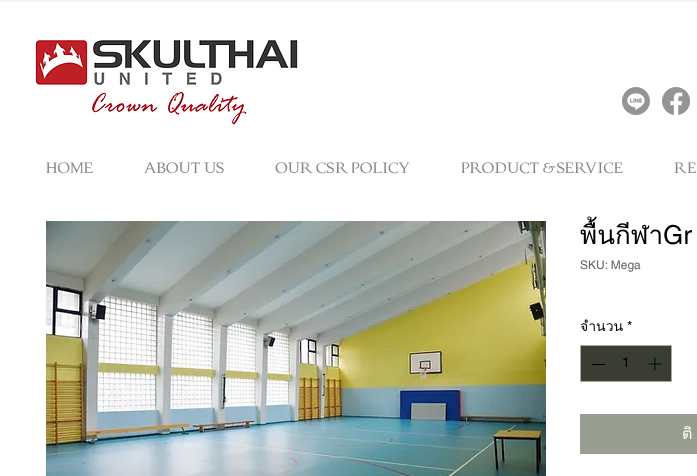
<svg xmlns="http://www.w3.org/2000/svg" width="697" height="476">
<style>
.a{font:14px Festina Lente;fill:#858585}
.b{font:26px Loma;fill:#000}
.c{font:26px helvetica;fill:#000}
.d{font:12px helvetica;fill:#666}
.e{font:14px Loma;fill:#000}
.f{font:14px helvetica;fill:#000}
.g{font:16px Loma;fill:#fff}
</style>
<rect width="100%" height="100%" fill="#fff"/>
<path fill="#f4f4f3" d="M0 0h697v2H0z"/>
<image href="1.png" x="35" y="40" width="263" height="85"/>
<image href="2.png" x="622" y="87" width="28" height="28"/>
<image href="3.png" x="662" y="87" width="28" height="28"/>
<image href="4.png" x="46" y="221" width="500" height="255"/>
<path fill="#393d32" stroke="#a7aaa3" d="M580.5 345.5h91v36H580.5z"/>
<path fill="#000" d="M592 364h13v1H592z"/>
<image href="5.png" x="648" y="357" width="14" height="14"/>
<path fill="#989e90" d="M580 414h117v40H580z"/>
<text class="a" x="46" y="173">HOME</text>
<text class="a" x="144" y="173">ABOUT US</text>
<text class="a" x="275" y="173">OUR CSR POLICY</text>
<text class="a" x="461" y="173">PRODUCT &amp; SERVICE</text>
<text class="a" x="674" y="173">RE</text>
<text class="b" x="580" y="244">พื้นกีฬา</text>
<text class="c" x="663" y="244">Gr</text>
<text class="d" x="580" y="269">SKU: Mega</text>
<text class="e" x="580" y="331">จำนวน</text>
<text class="f" x="627" y="331">*</text>
<text class="f" x="622" y="367">1</text>
<text class="g" x="682" y="439">ติ</text>
</svg>
